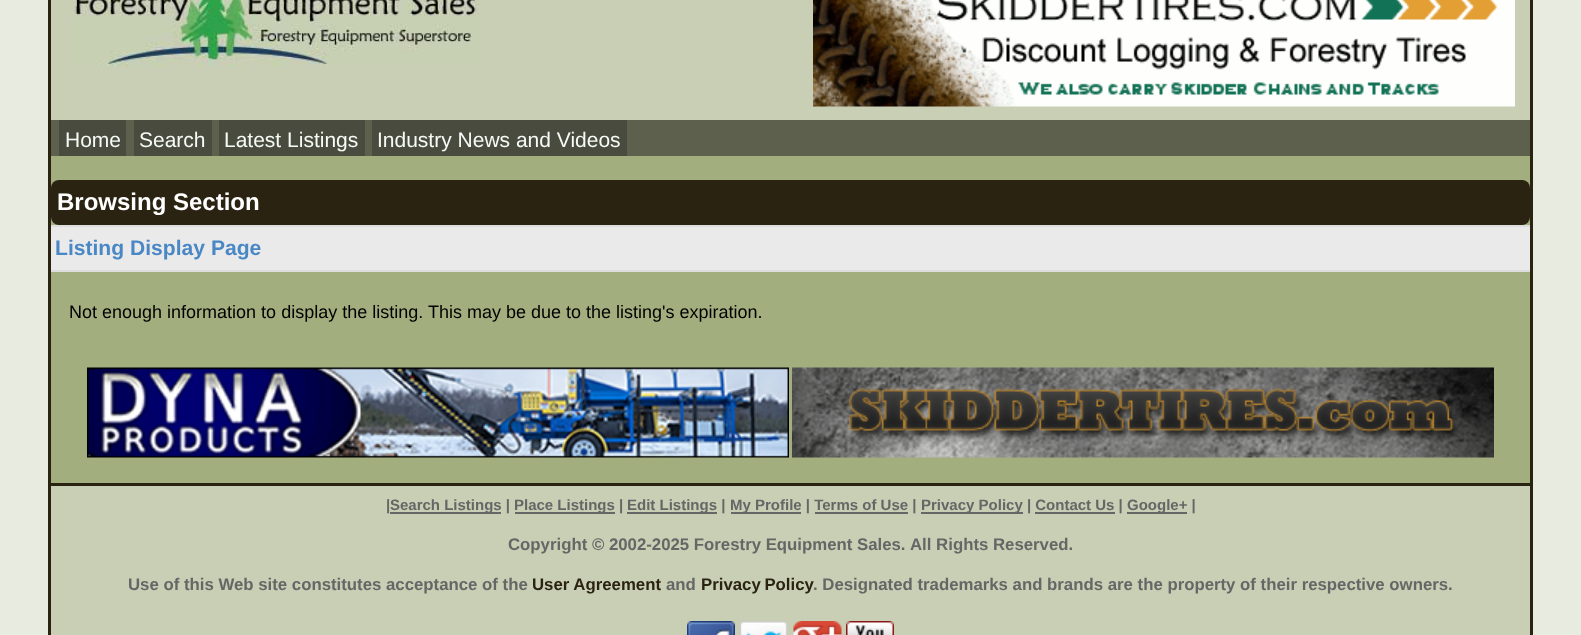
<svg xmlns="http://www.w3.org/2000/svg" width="1581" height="635">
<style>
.a{font:21px Liberation Sans;fill:#f6fbf7}
.b{font:bold 24px Liberation Sans;fill:#fff}
.c{font:bold 21.1px Liberation Sans;fill:#4987c5}
.d{font:18px Liberation Sans;fill:#000}
.e{font:bold 15px Liberation Sans;fill:#666}
.f{font:bold 16.8px Liberation Sans;fill:#666}
.g{font:bold 16.8px Liberation Sans;fill:#2a2311}
</style>
<rect width="100%" height="100%" fill="#e8ebe0"/>
<path fill="#a3ae7e" d="M51 156h1479v327H51z"/>
<path fill="none" stroke="#2a2311" stroke-width="3" d="M49.5 -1.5h1482v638H49.5z"/>
<path fill="#c8cfb4" d="M51 0h1479v120H51z"/>
<image href="1.png" x="73" y="0" width="406" height="66"/>
<image href="2.png" x="813" y="0" width="702" height="107"/>
<path fill="#5c604d" d="M51 120h1479v36H51z"/>
<path fill="#484b3d" d="M59 120h67v36H59z"/>
<path fill="#484b3d" d="M134 120h78v36H134z"/>
<path fill="#484b3d" d="M219 120h146v36H219z"/>
<path fill="#484b3d" d="M372 120h255v36H372z"/>
<rect fill="#2a2311" x="51" y="180" width="1479" height="45" rx="8"/>
<path fill="#eaeaea" d="M51 227h1479v43H51z"/>
<path fill="#ddd" d="M51 225h1479v2H51z"/>
<path fill="#ddd" d="M51 270h1479v2H51z"/>
<image href="3.png" x="87" y="367" width="702" height="91"/>
<image href="4.png" x="792" y="367" width="702" height="91"/>
<path fill="#c8cfb4" d="M51 486h1479v149H51z"/>
<path fill="#2a2311" d="M51 483h1479v3H51z"/>
<path fill="#666" d="M390 512h111v2H390z"/>
<path fill="#666" d="M515 512h100v2H515z"/>
<path fill="#666" d="M627 512h90v2H627z"/>
<path fill="#666" d="M731 512h70v2H731z"/>
<path fill="#666" d="M921 512h102v2H921z"/>
<path fill="#666" d="M1127 512h60v2H1127z"/>
<path fill="#666" d="M815 512h93v2H815z"/>
<path fill="#666" d="M1035 512h80v2H1035z"/>
<image href="5.png" x="687" y="621" width="48" height="14"/>
<image href="6.png" x="739" y="621" width="49" height="14"/>
<image href="7.png" x="793" y="621" width="49" height="14"/>
<image href="8.png" x="846" y="621" width="48" height="14"/>
<text class="a" x="65" y="147">Home</text>
<text class="a" x="139" y="147">Search</text>
<text class="a" x="224" y="147">Latest Listings</text>
<text class="a" x="377" y="147">Industry News and Videos</text>
<text class="b" x="57" y="210">Browsing Section</text>
<text class="c" x="55" y="255">Listing Display Page</text>
<text class="d" x="69" y="318">Not enough information to display the listing. This may be due to the listing's expiration.</text>
<text class="e" x="386" y="510">|</text>
<text class="e" x="390" y="510">Search Listings |</text>
<text class="e" x="514" y="510">Place Listings |</text>
<text class="e" x="627" y="510">Edit Listings |</text>
<text class="e" x="730" y="510">My Profile | Terms of Use |</text>
<text class="e" x="921" y="510">Privacy Policy | Contact Us |</text>
<text class="e" x="1127" y="510">Google+ |</text>
<text class="f" x="508" y="550">Copyright © 2002-2025 Forestry Equipment Sales.</text>
<text class="f" x="910" y="550">All Rights Reserved.</text>
<text class="f" x="128" y="590">Use of this Web site constitutes acceptance of the</text>
<text class="g" x="532" y="590">User Agreement</text>
<text class="f" x="666" y="590">and</text>
<text class="g" x="701" y="590" word-spacing="-1">Privacy Policy</text>
<text class="f" x="813" y="590">. Designated trademarks and brands are the property of their respective owners.</text>
</svg>
